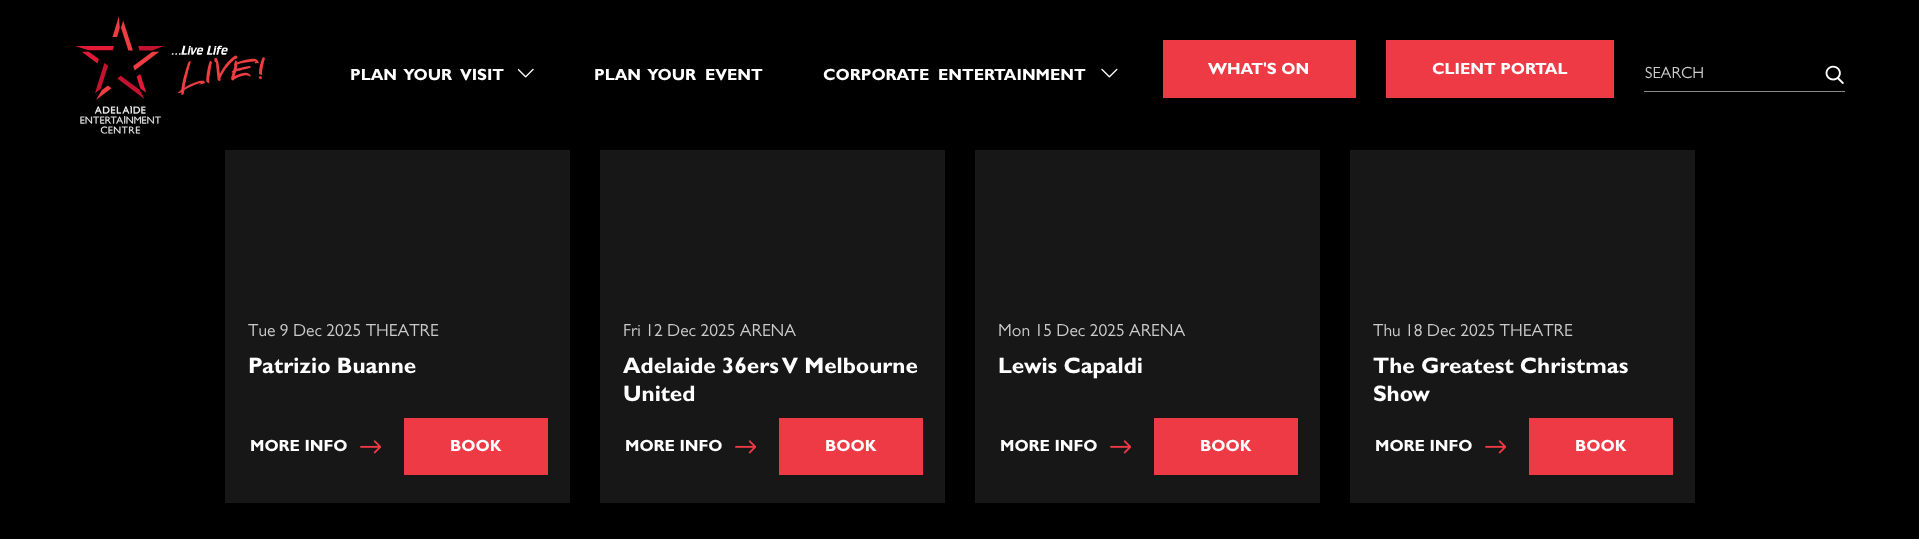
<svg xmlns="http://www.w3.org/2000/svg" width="1919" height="539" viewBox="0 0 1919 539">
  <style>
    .t1 { font: bold 16.25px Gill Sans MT; fill: #fff; }
    .t2 { font: 300 16.25px Gill Sans MT; fill: #cbcbcb; }
    .t3 { font: 300 17.5px Gill Sans MT; fill: #cbcbcb; }
    .t4 { font: bold 22.5px Gill Sans MT; fill: #fff; }
  </style>
  <rect width="100%" height="100%" fill="#000"/>
  <image x="75" y="16" width="190" height="118" href="images/1.png"/>
  <text x="350" y="80" class="t1" xml:space="preserve">PLAN  YOUR</text>
  <text x="460" y="80" class="t1">VISIT</text>
  <image x="518" y="68" width="16" height="10" href="images/2.png"/>
  <text x="594" y="80" class="t1" xml:space="preserve">PLAN  YOUR</text>
  <text x="705" y="80" class="t1">EVENT</text>
  <text x="823" y="80" class="t1">CORPORATE</text>
  <text x="938" y="80" class="t1">ENTERTAINMENT</text>
  <image x="1101" y="68" width="17" height="10" href="images/3.png"/>
  <rect x="1163" y="40" width="193" height="58" fill="#ee3a45"/>
  <text x="1208" y="74" class="t1">WHAT'S ON</text>
  <rect x="1386" y="40" width="228" height="58" fill="#ee3a45"/>
  <text x="1432" y="74" class="t1">CLIENT PORTAL</text>
  <rect x="1644" y="91" width="201" height="1" fill="#8a8a8a"/>
  <text x="1645" y="78" class="t2">SEARCH</text>
  <image x="1825" y="65" width="19" height="19" href="images/4.png"/>
  <rect x="225" y="150" width="345" height="353" fill="#171717"/>
  <text x="248" y="336" class="t3">Tue 9 Dec 2025 THEATRE</text>
  <text x="248" y="373" class="t4">Patrizio Buanne</text>
  <text x="250" y="451" class="t1">MORE INFO</text>
  <image x="360" y="440" width="21" height="14" href="images/5.png"/>
  <rect x="404" y="418" width="144" height="57" fill="#ee3a45"/>
  <text x="450" y="451" class="t1">BOOK</text>
  <rect x="600" y="150" width="345" height="353" fill="#171717"/>
  <text x="623" y="336" class="t3">Fri 12 Dec 2025 ARENA</text>
  <text x="623" y="373" class="t4">Adelaide 36ers V Melbourne</text>
  <text x="623" y="401" class="t4">United</text>
  <text x="625" y="451" class="t1">MORE INFO</text>
  <image x="735" y="440" width="21" height="14" href="images/5.png"/>
  <rect x="779" y="418" width="144" height="57" fill="#ee3a45"/>
  <text x="825" y="451" class="t1">BOOK</text>
  <rect x="975" y="150" width="345" height="353" fill="#171717"/>
  <text x="998" y="336" class="t3">Mon 15 Dec 2025 ARENA</text>
  <text x="998" y="373" class="t4">Lewis Capaldi</text>
  <text x="1000" y="451" class="t1">MORE INFO</text>
  <image x="1110" y="440" width="21" height="14" href="images/5.png"/>
  <rect x="1154" y="418" width="144" height="57" fill="#ee3a45"/>
  <text x="1200" y="451" class="t1">BOOK</text>
  <rect x="1350" y="150" width="345" height="353" fill="#171717"/>
  <text x="1373" y="336" class="t3">Thu 18 Dec 2025 THEATRE</text>
  <text x="1373" y="373" class="t4">The Greatest Christmas</text>
  <text x="1373" y="401" class="t4">Show</text>
  <text x="1375" y="451" class="t1">MORE INFO</text>
  <image x="1485" y="440" width="21" height="14" href="images/5.png"/>
  <rect x="1529" y="418" width="144" height="57" fill="#ee3a45"/>
  <text x="1575" y="451" class="t1">BOOK</text>
</svg>
